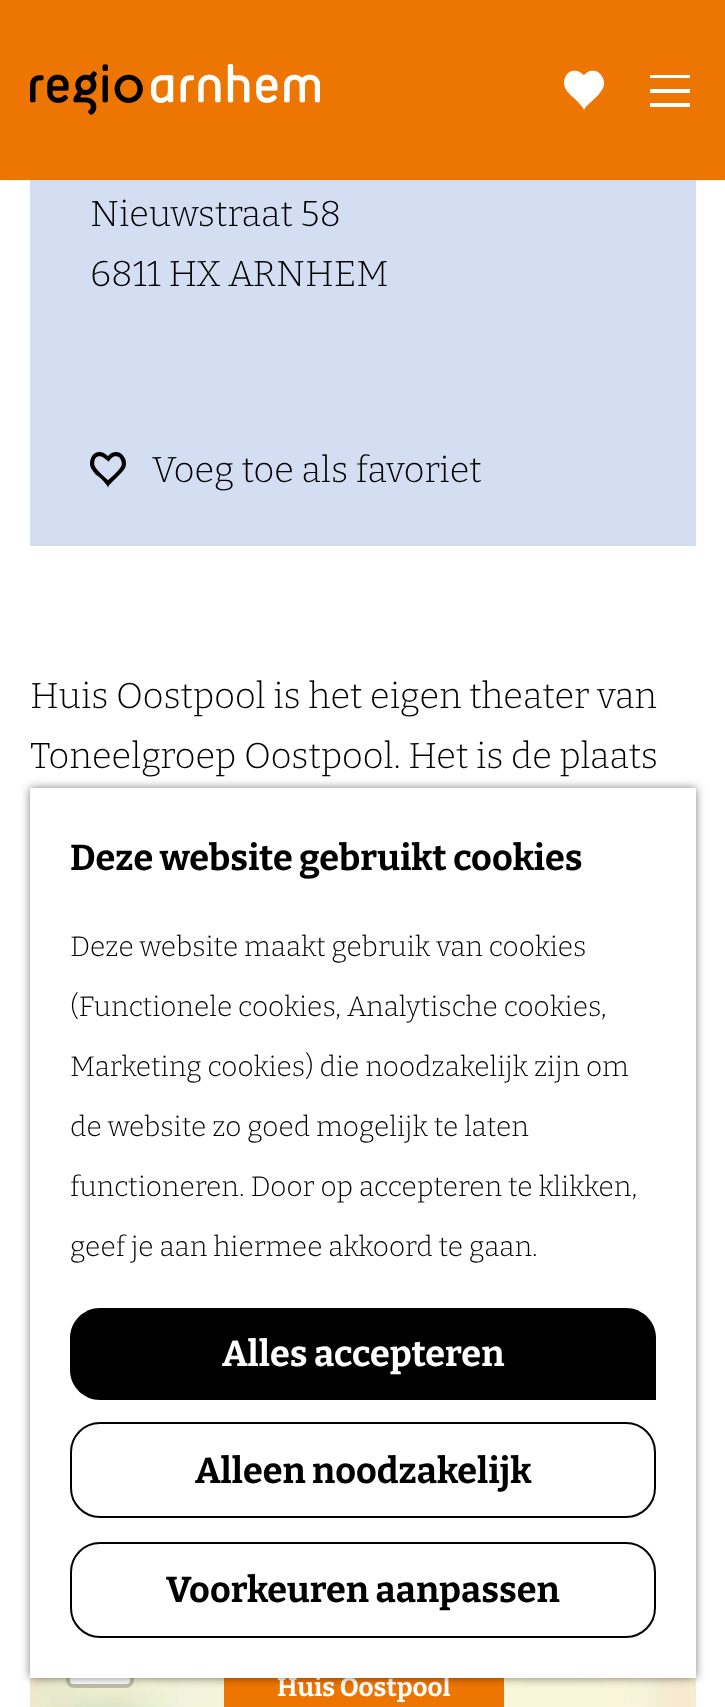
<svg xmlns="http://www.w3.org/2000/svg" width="725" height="1707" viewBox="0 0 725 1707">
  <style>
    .t1 { font: 100 36px Bitter; fill: #000; }
    .t2 { font: 100 26px 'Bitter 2'; fill: #fff; }
    .t3 { font: 100 36px 'Bitter 2'; fill: #000; }
    .t4 { font: 100 28px Bitter; fill: #000; }
    .t5 { font: 100 36px 'Bitter 2'; fill: #fff; }
  </style>
  <rect width="100%" height="100%" fill="#fff"/>
  <rect x="30" y="180" width="666" height="366" fill="#d3def2"/>
  <rect x="0" y="0" width="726" height="180" fill="#0000001a" filter="blur(1px)"/>
  <rect x="0" y="0" width="725" height="180" fill="#ed7501"/>
  <image x="30" y="64" width="290" height="51" href="images/1.png"/>
  <image x="564" y="70" width="40" height="41" href="images/2.png"/>
  <path d="M650 75H690V78H650ZM650 89H690V93H650ZM650 103H690V107H650Z" fill="#fff"/>
  <text x="90" y="226" class="t1">Nieuwstraat 58</text>
  <text x="90" y="286" class="t1">6811 HX ARNHEM</text>
  <image x="90" y="452" width="36" height="36" href="images/3.png"/>
  <text x="152" y="482" class="t1">Voeg toe als favoriet</text>
  <text x="30" y="708" class="t1">Huis Oostpool is het eigen theater van</text>
  <text x="30" y="768" class="t1">Toneelgroep Oostpool. Het is de plaats</text>
  <image x="30" y="1678" width="666" height="29" href="images/4.png"/>
  <rect x="68" y="1622" width="64" height="64" rx="6" fill="none" stroke="#00000033" stroke-width="4"/>
  <rect x="70" y="1624" width="60" height="60" rx="4" fill="#fff"/>
  <rect x="224" y="1678" width="280" height="29" fill="#ed7501"/>
  <text x="277" y="1696" class="t2">Huis Oostpool</text>
  <rect x="30" y="788" width="666" height="890" fill="#00000080" filter="blur(5px)"/>
  <rect x="30" y="788" width="666" height="890" fill="#fff"/>
  <text x="70" y="870" class="t3">Deze website gebruikt cookies</text>
  <text x="70" y="956" class="t4">Deze website maakt gebruik van cookies</text>
  <text x="70" y="1016" class="t4">(Functionele cookies, Analytische cookies,</text>
  <text x="70" y="1076" class="t4">Marketing cookies) die noodzakelijk zijn om</text>
  <text x="70" y="1136" class="t4">de website zo goed mogelijk te laten</text>
  <text x="70" y="1196" class="t4">functioneren. Door op accepteren te klikken,</text>
  <text x="70" y="1256" class="t4">geef je aan hiermee akkoord te gaan.</text>
  <path d="M100 1308H626C642.5 1308 656 1321.5 656 1338V1400H100C83.5 1400 70 1386.5 70 1370V1338C70 1321.5 83.5 1308 100 1308Z" fill="#000"/>
  <text x="222" y="1366" class="t5">Alles accepteren</text>
  <rect x="71" y="1423" width="584" height="94" rx="29" fill="none" stroke="#000" stroke-width="2"/>
  <text x="195" y="1483" class="t3">Alleen noodzakelijk</text>
  <rect x="71" y="1543" width="584" height="94" rx="29" fill="none" stroke="#000" stroke-width="2"/>
  <text x="166" y="1602" class="t3">Voorkeuren aanpassen</text>
</svg>
